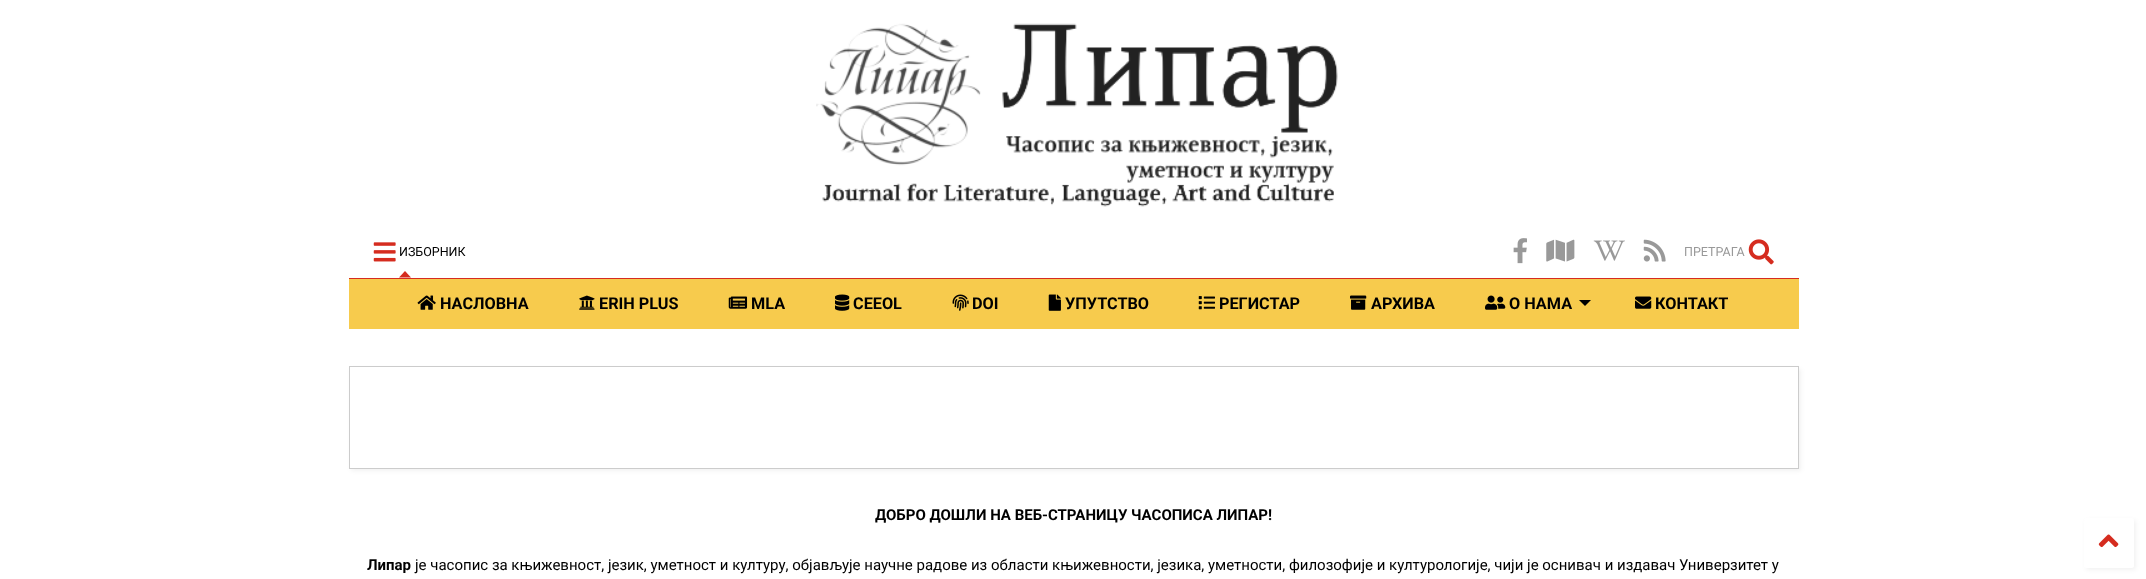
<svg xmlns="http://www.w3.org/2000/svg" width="2146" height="579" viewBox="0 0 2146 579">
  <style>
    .t1 { font: 12.5px Roboto; fill: #000; }
    .t2 { font: 12.5px Roboto; fill: #999; }
    .t3 { font: bold 16.25px Roboto; fill: #000; }
    .t4 { font: bold 15px Roboto; fill: #000; }
    .t5 { font: 15px Roboto; fill: #000; }
  </style>
  <rect width="100%" height="100%" fill="#fff"/>
  <image x="816" y="23" width="522" height="184" href="images/1.png"/>
  <image x="373" y="242" width="23" height="20" href="images/2.png"/>
  <text x="399" y="256" class="t1">ИЗБОРНИК</text>
  <path d="M411 277.5H399L405 271Z" fill="#d52c1f"/>
  <image x="1513" y="238" width="14" height="26" href="images/3.png"/>
  <image x="1546" y="239" width="29" height="23" href="images/4.png"/>
  <image x="1593" y="240" width="32" height="21" href="images/5.png"/>
  <image x="1643" y="239" width="23" height="23" href="images/6.png"/>
  <text x="1684" y="256" class="t2">ПРЕТРАГА</text>
  <image x="1748" y="239" width="26" height="26" href="images/7.png"/>
  <rect x="349" y="279" width="1450" height="50" fill="#f7cb4d"/>
  <rect x="349" y="278" width="1450" height="1" fill="#d52c1f"/>
  <image x="417" y="295" width="19" height="15" href="images/8.png"/>
  <text x="440" y="309" class="t3">НАСЛОВНА</text>
  <image x="579" y="295" width="16" height="15" href="images/9.png"/>
  <text x="599" y="309" class="t3">ERIH PLUS</text>
  <image x="728" y="296" width="20" height="13" href="images/10.png"/>
  <text x="751" y="309" class="t3">MLA</text>
  <image x="835" y="294" width="15" height="17" href="images/11.png"/>
  <text x="853" y="309" class="t3">CEEOL</text>
  <image x="952" y="294" width="17" height="17" href="images/12.png"/>
  <text x="972" y="309" class="t3">DOI</text>
  <image x="1048" y="294" width="13" height="17" href="images/13.png"/>
  <text x="1065" y="309" class="t3">УПУТСТВО</text>
  <image x="1198" y="296" width="17" height="14" href="images/14.png"/>
  <text x="1219" y="309" class="t3">РЕГИСТАР</text>
  <image x="1350" y="295" width="17" height="15" href="images/15.png"/>
  <text x="1371" y="309" class="t3">АРХИВА</text>
  <image x="1485" y="295" width="21" height="15" href="images/16.png"/>
  <text x="1509" y="309" class="t3">О НАМА</text>
  <path d="M1579 300H1591L1585 306Z" fill="#000"/>
  <image x="1635" y="296" width="17" height="13" href="images/17.png"/>
  <text x="1655" y="309" class="t3">КОНТАКТ</text>
  <rect x="351" y="369" width="1450" height="102" fill="#0000000d" filter="blur(2px)"/>
  <rect x="349.5" y="366.5" width="1449" height="102" fill="#fff" stroke="#ccc"/>
  <text x="875" y="520" class="t4">ДОБРО ДОШЛИ НА ВЕБ-СТРАНИЦУ ЧАСОПИСА ЛИПАР!</text>
  <text x="367" y="570" class="t4">Липар</text>
  <text x="415" y="570" class="t5">је часопис за књижевност, језик, уметност и културу, објављује научне радове из области књижевности, језика, уметности, филозофије и културологије, чији је оснивач и издавач Универзитет у</text>
  <rect x="2086" y="520" width="50" height="50" rx="2.5" fill="#0000000d" filter="blur(2px)"/>
  <rect x="2084" y="518" width="50" height="50" rx="2.5" fill="#fff"/>
  <image x="2098" y="534" width="21" height="14" href="images/18.png"/>
</svg>
